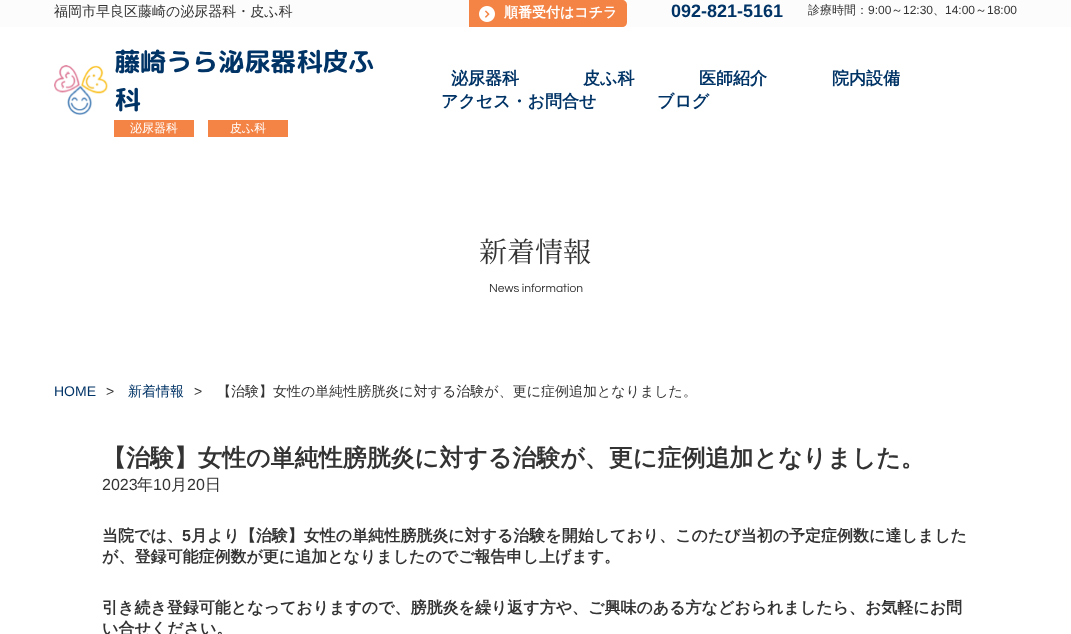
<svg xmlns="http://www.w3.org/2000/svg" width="1071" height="634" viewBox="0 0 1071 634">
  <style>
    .t1 { font: 500 14px WenQuanYi Zen Hei; fill: #333; }
    .t2 { font: bold 14px WenQuanYi Zen Hei; fill: #fff; }
    .t3 { font: bold 18px Liberation Sans; fill: #036; }
    .t4 { font: 500 12px WenQuanYi Zen Hei; fill: #333; }
    .t5 { font: 12px Liberation Sans; fill: #333; }
    .t6 { font: bold 26px 'Rounded Mplus 1c Bold'; fill: #036; }
    .t7 { font: 500 12px WenQuanYi Zen Hei; fill: #fff; }
    .t8 { font: bold 17px WenQuanYi Zen Hei; fill: #036; }
    .t9 { font: 200 28px Noto Serif JP; fill: #333; }
    .t10 { font: 12px Questrial; fill: #333; }
    .t11 { font: 14px Liberation Sans; fill: #036; }
    .t12 { font: 14px Liberation Sans; fill: #333; }
    .t13 { font: 500 14px WenQuanYi Zen Hei; fill: #036; }
    .t14 { font: bold 24px WenQuanYi Zen Hei; fill: #333; }
    .t15 { font: 16px Liberation Sans; fill: #333; }
    .t16 { font: 500 16px WenQuanYi Zen Hei; fill: #333; }
    .t17 { font: bold 16px WenQuanYi Zen Hei; fill: #333; }
    .t18 { font: bold 16px Liberation Sans; fill: #333; }
  </style>
  <rect width="100%" height="100%" fill="#fff"/>
  <rect x="0" y="0" width="1071" height="27" fill="#fcfcfc"/>
  <text x="54" y="16" class="t1">福岡市早良区藤崎の泌尿器科・皮ふ科</text>
  <path d="M469 0H622C625 0 627 2 627 5V22C627 25 625 27 622 27H469Z" fill="#f48445"/>
  <image x="479" y="6" width="16" height="16" href="images/1.png"/>
  <text x="504" y="17" class="t2">順番受付はコチラ</text>
  <text x="671" y="17" class="t3">092-821-5161</text>
  <text x="808" y="14" class="t4">診療時間：</text>
  <text x="868" y="14" class="t5">9:00</text>
  <text x="891" y="14" class="t4">～</text>
  <text x="903" y="14" class="t5">12:30</text>
  <text x="945" y="14" class="t5">14:00</text>
  <text x="975" y="14" class="t4">～</text>
  <text x="987" y="14" class="t5">18:00</text>
  <text x="933" y="14" class="t4">、</text>
  <image x="54" y="65" width="54" height="50" href="images/2.png"/>
  <text x="114" y="71" class="t6">藤崎うら泌尿器科皮ふ</text>
  <text x="114" y="109" class="t6">科</text>
  <rect x="114" y="120" width="80" height="17" fill="#f48445"/>
  <text x="130" y="132" class="t7">泌尿器科</text>
  <rect x="208" y="120" width="80" height="17" fill="#f48445"/>
  <text x="230" y="132" class="t7">皮ふ科</text>
  <text x="451" y="84" class="t8">泌尿器科</text>
  <text x="583" y="84" class="t8">皮ふ科</text>
  <text x="699" y="84" class="t8">医師紹介</text>
  <text x="832" y="84" class="t8">院内設備</text>
  <text x="441" y="107" class="t8">アクセス・お問合せ</text>
  <text x="657" y="107" class="t8">ブログ</text>
  <text x="479" y="262" class="t9">新着情報</text>
  <text x="489" y="292" class="t10">News information</text>
  <text x="54" y="396" class="t11">HOME</text>
  <text x="106" y="396" class="t12">&gt;</text>
  <text x="128" y="396" class="t13">新着情報</text>
  <text x="194" y="396" class="t12">&gt;</text>
  <text x="217" y="396" class="t1">【治験】女性の単純性膀胱炎に対する治験が、更に症例追加となりました。</text>
  <text x="102" y="466" class="t14">【治験】女性の単純性膀胱炎に対する治験が、更に症例追加となりました。</text>
  <text x="102" y="490" class="t15">2023</text>
  <text x="137" y="490" class="t16">年</text>
  <text x="153" y="490" class="t15">10</text>
  <text x="171" y="490" class="t16">月</text>
  <text x="187" y="490" class="t15">20</text>
  <text x="205" y="490" class="t16">日</text>
  <text x="102" y="541" class="t17">当院では、</text>
  <text x="182" y="541" class="t18">5</text>
  <text x="191" y="541" class="t17">月より【治験】女性の単純性膀胱炎に対する治験を開始しており、このたび当初の予定症例数に達しました</text>
  <text x="102" y="562" class="t17">が、登録可能症例数が更に追加となりましたのでご報告申し上げます。</text>
  <text x="102" y="613" class="t17">引き続き登録可能となっておりますので、膀胱炎を繰り返す方や、ご興味のある方などおられましたら、お気軽にお問</text>
  <text x="102" y="634" class="t17">い合せください。</text>
</svg>
